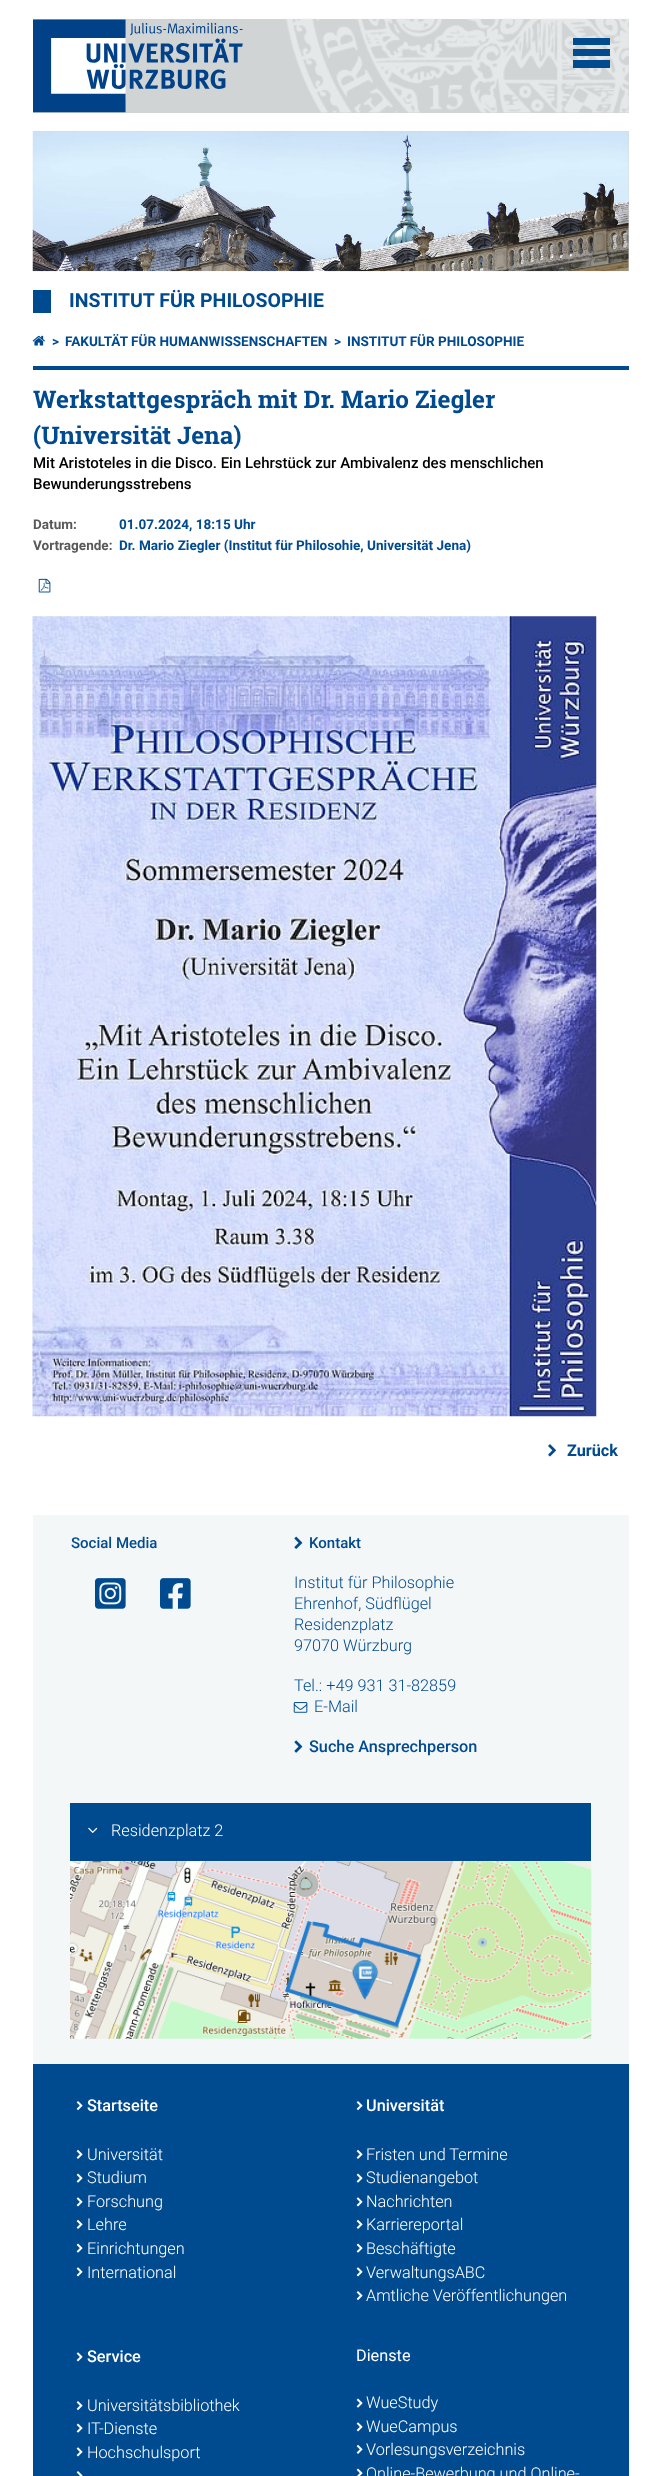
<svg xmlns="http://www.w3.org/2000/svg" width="661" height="2476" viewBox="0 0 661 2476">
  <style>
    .t1 { font: bold 19.5px Roboto; fill: #004a8f; }
    .t2 { font: bold 13.55px Roboto; fill: #004a8f; }
    .t3 { font: bold 24.4px Roboto Slab; fill: #004a8f; }
    .t4 { font: 500 15px Roboto; fill: #000; }
    .t5 { font: bold 13.55px Roboto; fill: #595959; }
    .t6 { font: bold 16.25px Roboto; fill: #004a8f; }
    .t7 { font: 500 15px Roboto; fill: #004a8f; }
    .t8 { font: 300 16.25px Roboto; fill: #004a8f; }
    .t9 { font: 500 16.25px Roboto; fill: #004a8f; }
    .t10 { font: 300 16.25px Roboto; fill: #fff; }
    .t11 { font: 500 16.25px Roboto; fill: #fff; }
    .t12 { font: 16.25px Roboto; fill: #fff; }
  </style>
  <rect width="100%" height="100%" fill="#fff"/>
  <rect x="33" y="19" width="596" height="94" fill="#d1d4d4"/>
  <image x="286" y="18" width="343" height="95" href="images/1.png"/>
  <image x="33" y="19" width="210" height="94" href="images/2.png"/>
  <rect x="573" y="38" width="37" height="7" fill="#004a8f"/>
  <rect x="573" y="49" width="37" height="7" fill="#004a8f"/>
  <rect x="573" y="60" width="37" height="8" fill="#004a8f"/>
  <rect x="33" y="131" width="596" height="140" fill="#d5dad5"/>
  <image x="32" y="131" width="597" height="141" href="images/3.png"/>
  <rect x="33" y="290" width="18" height="23" fill="#004a8f"/>
  <text x="69" y="307" class="t1">INSTITUT FÜR PHILOSOPHIE</text>
  <rect x="33" y="366" width="596" height="4" fill="#004a8f"/>
  <image x="32" y="335" width="13" height="11" href="images/4.png"/>
  <text x="52" y="346" class="t2">&gt;</text>
  <text x="65" y="346" class="t2">FAKULTÄT FÜR HUMANWISSENSCHAFTEN</text>
  <text x="334" y="346" class="t2">&gt;</text>
  <text x="347" y="346" class="t2">INSTITUT FÜR PHILOSOPHIE</text>
  <text x="33" y="408" class="t3">Werkstattgespräch mit Dr. Mario Ziegler</text>
  <text x="33" y="444" class="t3">(Universität Jena)</text>
  <text x="33" y="468" class="t4">Mit Aristoteles in die Disco. Ein Lehrstück zur Ambivalenz des menschlichen</text>
  <text x="33" y="489" class="t4">Bewunderungsstrebens</text>
  <text x="33" y="529" class="t5">Datum:</text>
  <text x="119" y="529" class="t2">01.07.2024, 18:15 Uhr</text>
  <text x="33" y="550" class="t5">Vortragende:</text>
  <text x="119" y="550" class="t2">Dr. Mario Ziegler (Institut für Philosohie, Universität Jena)</text>
  <image x="38" y="578" width="13" height="15" href="images/5.png"/>
  <image x="32" y="616" width="565" height="801" href="images/6.png"/>
  <image x="548" y="1444" width="8" height="13" href="images/7.png"/>
  <text x="567" y="1456" class="t6">Zurück</text>
  <rect x="33" y="1515" width="596" height="549" fill="#f4f7f7"/>
  <text x="71" y="1548" class="t7">Social Media</text>
  <image x="95" y="1578" width="31" height="31" href="images/8.png"/>
  <image x="160" y="1578" width="31" height="31" href="images/9.png"/>
  <image x="294" y="1536" width="9" height="13" href="images/10.png"/>
  <text x="309" y="1548" class="t7">Kontakt</text>
  <text x="294" y="1588" class="t8">Institut für Philosophie</text>
  <text x="294" y="1609" class="t8">Ehrenhof, Südflügel</text>
  <text x="294" y="1630" class="t8">Residenzplatz</text>
  <text x="294" y="1651" class="t8">97070 Würzburg</text>
  <text x="294" y="1691" class="t8">Tel.: +49 931 31-82859</text>
  <image x="293" y="1702" width="15" height="11" href="images/11.png"/>
  <text x="314" y="1712" class="t8">E-Mail</text>
  <image x="294" y="1740" width="9" height="13" href="images/12.png"/>
  <text x="309" y="1752" class="t9">Suche Ansprechperson</text>
  <rect x="70" y="1803" width="521" height="58" fill="#004a8f"/>
  <image x="88" y="1827" width="10" height="6" href="images/13.png"/>
  <text x="111" y="1836" class="t10">Residenzplatz 2</text>
  <image x="70" y="1861" width="522" height="178" href="images/14.png"/>
  <rect x="33" y="2064" width="596" height="412" fill="#004a8f"/>
  <image x="76" y="2101" width="7" height="10" href="images/15.png"/>
  <text x="87" y="2111" class="t11">Startseite</text>
  <image x="76" y="2149" width="7" height="10" href="images/16.png"/>
  <text x="87" y="2160" class="t10">Universität</text>
  <image x="76" y="2173" width="7" height="10" href="images/17.png"/>
  <text x="87" y="2183" class="t10">Studium</text>
  <image x="76" y="2197" width="7" height="10" href="images/18.png"/>
  <text x="87" y="2207" class="t10">Forschung</text>
  <image x="76" y="2219" width="7" height="10" href="images/16.png"/>
  <text x="87" y="2230" class="t10">Lehre</text>
  <image x="76" y="2243" width="7" height="10" href="images/17.png"/>
  <text x="87" y="2254" class="t10">Einrichtungen</text>
  <image x="76" y="2267" width="7" height="10" href="images/18.png"/>
  <text x="87" y="2278" class="t10">International</text>
  <image x="356" y="2101" width="7" height="10" href="images/15.png"/>
  <text x="366" y="2111" class="t11">Universität</text>
  <image x="356" y="2149" width="7" height="10" href="images/16.png"/>
  <text x="366" y="2160" class="t10">Fristen und Termine</text>
  <image x="356" y="2173" width="7" height="10" href="images/17.png"/>
  <text x="366" y="2183" class="t10">Studienangebot</text>
  <image x="356" y="2197" width="7" height="10" href="images/18.png"/>
  <text x="366" y="2207" class="t10">Nachrichten</text>
  <image x="356" y="2219" width="7" height="10" href="images/16.png"/>
  <text x="366" y="2230" class="t10">Karriereportal</text>
  <image x="356" y="2243" width="7" height="10" href="images/17.png"/>
  <text x="366" y="2254" class="t10">Beschäftigte</text>
  <image x="356" y="2267" width="7" height="10" href="images/18.png"/>
  <text x="366" y="2278" class="t10">VerwaltungsABC</text>
  <image x="356" y="2291" width="7" height="10" href="images/15.png"/>
  <text x="366" y="2301" class="t10">Amtliche Veröffentlichungen</text>
  <image x="76" y="2352" width="7" height="10" href="images/18.png"/>
  <text x="87" y="2362" class="t11">Service</text>
  <image x="76" y="2401" width="7" height="10" href="images/15.png"/>
  <text x="87" y="2411" class="t10">Universitätsbibliothek</text>
  <image x="76" y="2423" width="7" height="10" href="images/17.png"/>
  <text x="87" y="2434" class="t10">IT-Dienste</text>
  <image x="76" y="2447" width="7" height="10" href="images/18.png"/>
  <text x="87" y="2458" class="t10">Hochschulsport</text>
  <image x="76" y="2471" width="7" height="5" href="images/19.png"/>
  <text x="356" y="2361" class="t12">Dienste</text>
  <image x="356" y="2398" width="7" height="10" href="images/17.png"/>
  <text x="366" y="2408" class="t10">WueStudy</text>
  <image x="356" y="2422" width="7" height="10" href="images/18.png"/>
  <text x="366" y="2432" class="t10">WueCampus</text>
  <image x="356" y="2444" width="7" height="10" href="images/16.png"/>
  <text x="366" y="2455" class="t10">Vorlesungsverzeichnis</text>
  <image x="356" y="2468" width="7" height="8" href="images/20.png"/>
  <text x="366" y="2479" class="t10">Online-Bewerbung und Online-</text>
</svg>
